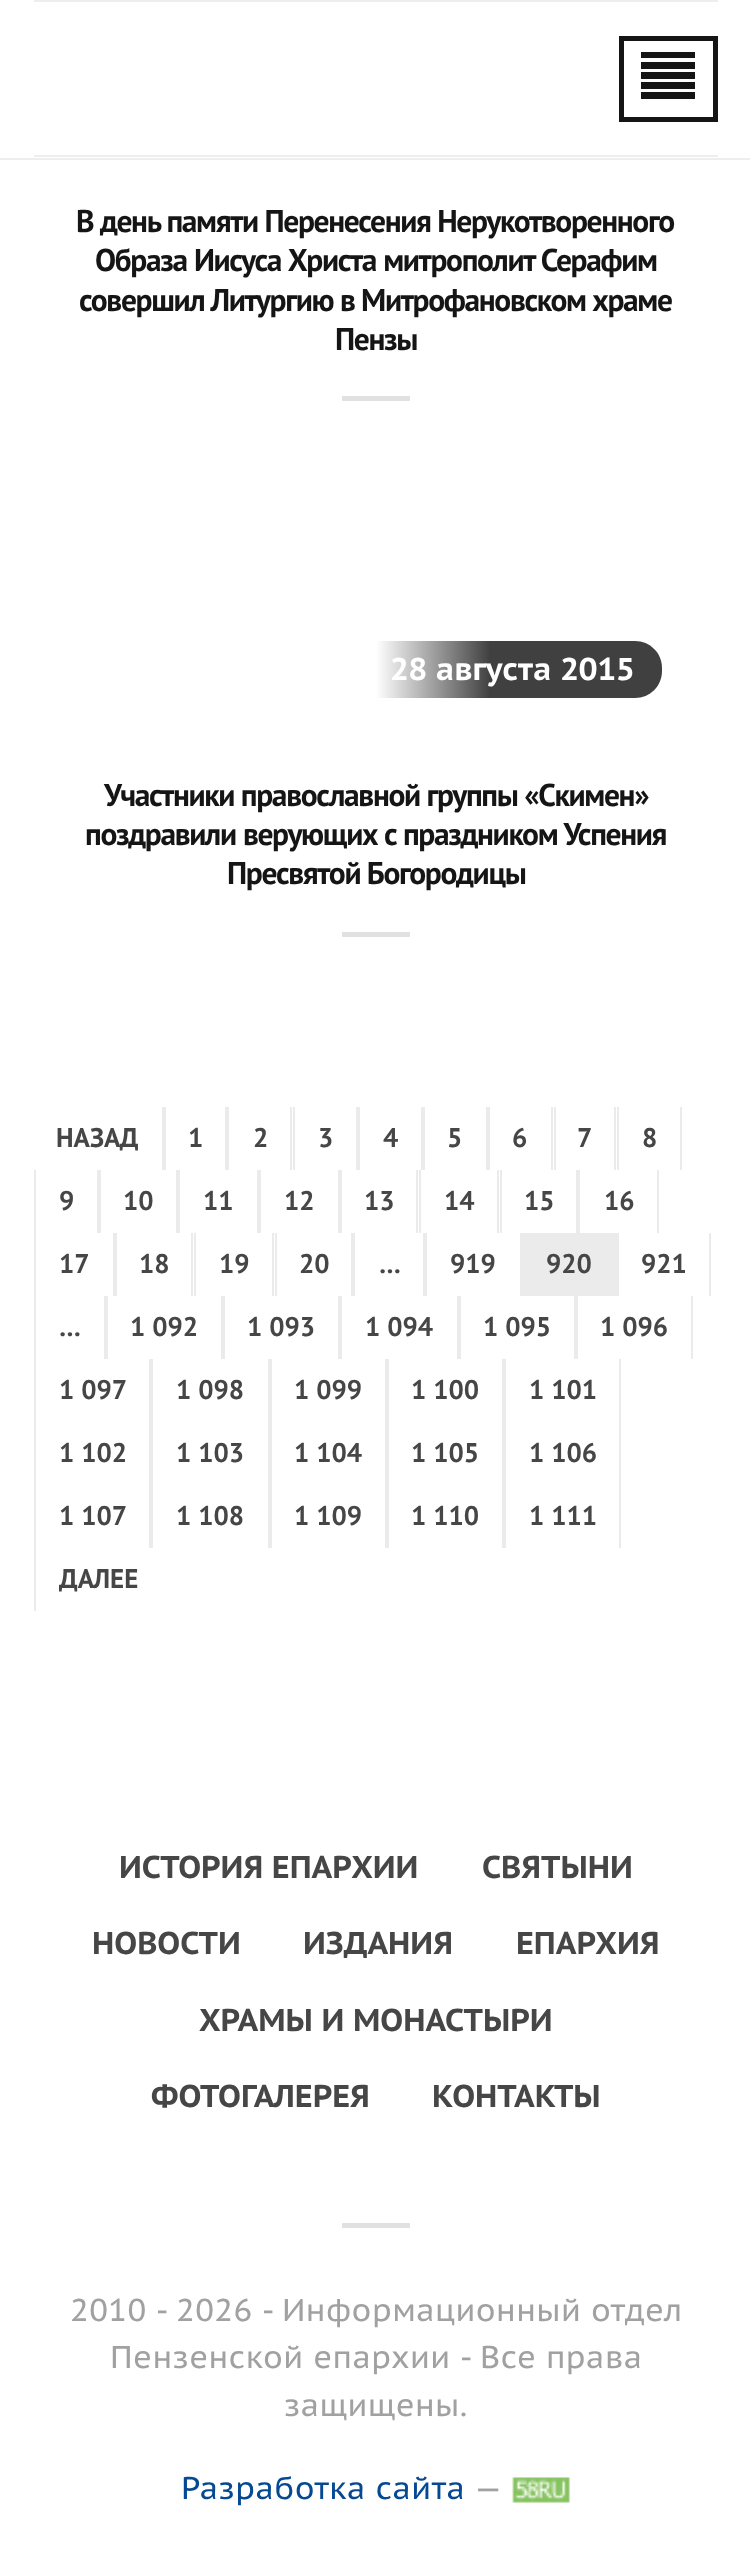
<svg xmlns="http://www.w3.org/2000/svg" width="750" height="2570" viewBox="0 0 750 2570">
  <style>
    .t1 { font: bold 31.5px PT Sans; letter-spacing: -1.35px; fill: #151515; }
    .t2 { font: bold 31.5px PT Sans Caption; fill: #fff; }
    .t3 { font: bold 27px PT Sans; fill: #464646; }
    .t4 { font: bold 31.5px PT Sans Caption; fill: #464646; }
    .t5 { font: 31.5px PT Sans Caption; letter-spacing: 0.45px; fill: #a1a1a1; }
    .t6 { font: 31.5px PT Sans Caption; letter-spacing: 0.45px; fill: #054993; }
  </style>
  <defs>
    <linearGradient id="g1" gradientUnits="userSpaceOnUse" x1="662" y1="669" x2="376" y2="669"><stop offset="0.6" stop-color="#404040"/><stop offset="1" stop-color="#fff"/></linearGradient>
  </defs>
  <rect width="100%" height="100%" fill="#fff"/>
  <rect x="0" y="158" width="750" height="2" fill="#eee"/>
  <rect x="34" y="0" width="684" height="2" fill="#eee"/>
  <rect x="34" y="155" width="684" height="2" fill="#eee"/>
  <rect x="621.5" y="38.5" width="94" height="81" fill="none" stroke="#151515" stroke-width="5"/>
  <path d="M641 52H695V58H641ZM641 62H695V69H641ZM641 72H695V79H641ZM641 82H695V89H641ZM641 92H695V99H641Z" fill="#151515"/>
  <text x="76" y="232" class="t1">В день памяти Перенесения Нерукотворенного</text>
  <text x="95" y="271" word-spacing="0.5" class="t1">Образа Иисуса Христа митрополит Серафим</text>
  <text x="79" y="311" class="t1">совершил Литургию в Митрофановском храме</text>
  <text x="335" y="350" class="t1">Пензы</text>
  <rect x="342" y="396" width="68" height="5" fill="#e1e1e1"/>
  <path d="M376 641H635C650 641 662 653 662 668V671C662 686 650 698 635 698H376Z" fill="url(#g1)"/>
  <text x="390" y="680" class="t2">28 августа 2015</text>
  <text x="104" y="806" class="t1">Участники православной группы «Скимен»</text>
  <text x="85" y="845" word-spacing="0.5" class="t1">поздравили верующих с праздником Успения</text>
  <text x="227" y="884" class="t1">Пресвятой Богородицы</text>
  <rect x="342" y="932" width="68" height="5" fill="#e1e1e1"/>
  <rect x="162" y="1107" width="4" height="63" fill="#ebebeb"/>
  <text x="56" y="1147" class="t3">НАЗАД</text>
  <rect x="225" y="1107" width="4" height="63" fill="#ebebeb"/>
  <text x="188" y="1147" class="t3">1</text>
  <rect x="290" y="1107" width="2" height="63" fill="#ebebeb"/>
  <text x="253" y="1147" class="t3">2</text>
  <rect x="356" y="1107" width="4" height="63" fill="#ebebeb"/>
  <rect x="293" y="1107" width="2" height="63" fill="#ebebeb"/>
  <text x="318" y="1147" class="t3">3</text>
  <rect x="421" y="1107" width="4" height="63" fill="#ebebeb"/>
  <text x="383" y="1147" class="t3">4</text>
  <rect x="486" y="1107" width="4" height="63" fill="#ebebeb"/>
  <text x="447" y="1147" class="t3">5</text>
  <rect x="551" y="1107" width="2" height="63" fill="#ebebeb"/>
  <text x="512" y="1147" class="t3">6</text>
  <rect x="614" y="1107" width="2" height="63" fill="#ebebeb"/>
  <rect x="554" y="1107" width="2" height="63" fill="#ebebeb"/>
  <text x="577" y="1147" class="t3">7</text>
  <rect x="680" y="1107" width="2" height="63" fill="#ebebeb"/>
  <rect x="617" y="1107" width="2" height="63" fill="#ebebeb"/>
  <text x="642" y="1147" class="t3">8</text>
  <rect x="97" y="1170" width="4" height="63" fill="#ebebeb"/>
  <rect x="34" y="1170" width="2" height="441" fill="#ebebeb"/>
  <text x="59" y="1210" class="t3">9</text>
  <rect x="176" y="1170" width="4" height="63" fill="#ebebeb"/>
  <text x="123" y="1210" class="t3">10</text>
  <rect x="257" y="1170" width="4" height="63" fill="#ebebeb"/>
  <text x="203" y="1210" class="t3">11</text>
  <rect x="338" y="1170" width="4" height="63" fill="#ebebeb"/>
  <text x="284" y="1210" class="t3">12</text>
  <rect x="416" y="1170" width="2" height="63" fill="#ebebeb"/>
  <text x="364" y="1210" class="t3">13</text>
  <rect x="497" y="1170" width="2" height="63" fill="#ebebeb"/>
  <rect x="419" y="1170" width="2" height="63" fill="#ebebeb"/>
  <text x="444" y="1210" class="t3">14</text>
  <rect x="576" y="1170" width="4" height="63" fill="#ebebeb"/>
  <rect x="500" y="1170" width="2" height="63" fill="#ebebeb"/>
  <text x="524" y="1210" class="t3">15</text>
  <rect x="657" y="1170" width="2" height="63" fill="#ebebeb"/>
  <text x="604" y="1210" class="t3">16</text>
  <rect x="113" y="1233" width="4" height="63" fill="#ebebeb"/>
  <text x="59" y="1273" class="t3">17</text>
  <rect x="191" y="1233" width="2" height="63" fill="#ebebeb"/>
  <text x="139" y="1273" class="t3">18</text>
  <rect x="272" y="1233" width="2" height="63" fill="#ebebeb"/>
  <rect x="194" y="1233" width="2" height="63" fill="#ebebeb"/>
  <text x="219" y="1273" class="t3">19</text>
  <rect x="351" y="1233" width="4" height="63" fill="#ebebeb"/>
  <rect x="275" y="1233" width="2" height="63" fill="#ebebeb"/>
  <text x="299" y="1273" class="t3">20</text>
  <rect x="423" y="1233" width="4" height="63" fill="#ebebeb"/>
  <text x="379" y="1273" class="t3">…</text>
  <rect x="520" y="1233" width="99" height="63" fill="#ebebeb"/>
  <text x="450" y="1273" class="t3">919</text>
  <text x="546" y="1273" class="t3">920</text>
  <rect x="709" y="1233" width="2" height="63" fill="#ebebeb"/>
  <text x="641" y="1273" class="t3">921</text>
  <rect x="104" y="1296" width="4" height="63" fill="#ebebeb"/>
  <text x="59" y="1336" class="t3">…</text>
  <rect x="221" y="1296" width="4" height="63" fill="#ebebeb"/>
  <text x="130" y="1336" class="t3">1 092</text>
  <rect x="338" y="1296" width="4" height="63" fill="#ebebeb"/>
  <text x="247" y="1336" class="t3">1 093</text>
  <rect x="457" y="1296" width="4" height="63" fill="#ebebeb"/>
  <text x="365" y="1336" class="t3">1 094</text>
  <rect x="574" y="1296" width="4" height="63" fill="#ebebeb"/>
  <text x="483" y="1336" class="t3">1 095</text>
  <rect x="691" y="1296" width="2" height="63" fill="#ebebeb"/>
  <text x="600" y="1336" class="t3">1 096</text>
  <rect x="149" y="1359" width="4" height="63" fill="#ebebeb"/>
  <text x="59" y="1399" class="t3">1 097</text>
  <rect x="268" y="1359" width="4" height="63" fill="#ebebeb"/>
  <text x="176" y="1399" class="t3">1 098</text>
  <rect x="385" y="1359" width="4" height="63" fill="#ebebeb"/>
  <text x="294" y="1399" class="t3">1 099</text>
  <rect x="502" y="1359" width="4" height="63" fill="#ebebeb"/>
  <text x="411" y="1399" class="t3">1 100</text>
  <rect x="619" y="1359" width="2" height="189" fill="#ebebeb"/>
  <text x="529" y="1399" class="t3">1 101</text>
  <rect x="149" y="1422" width="4" height="63" fill="#ebebeb"/>
  <text x="59" y="1462" class="t3">1 102</text>
  <rect x="268" y="1422" width="4" height="63" fill="#ebebeb"/>
  <text x="176" y="1462" class="t3">1 103</text>
  <rect x="385" y="1422" width="4" height="63" fill="#ebebeb"/>
  <text x="294" y="1462" class="t3">1 104</text>
  <rect x="502" y="1422" width="4" height="63" fill="#ebebeb"/>
  <text x="411" y="1462" class="t3">1 105</text>
  <text x="529" y="1462" class="t3">1 106</text>
  <rect x="149" y="1485" width="4" height="63" fill="#ebebeb"/>
  <text x="59" y="1525" class="t3">1 107</text>
  <rect x="268" y="1485" width="4" height="63" fill="#ebebeb"/>
  <text x="176" y="1525" class="t3">1 108</text>
  <rect x="385" y="1485" width="4" height="63" fill="#ebebeb"/>
  <text x="294" y="1525" class="t3">1 109</text>
  <rect x="502" y="1485" width="4" height="63" fill="#ebebeb"/>
  <text x="411" y="1525" class="t3">1 110</text>
  <text x="529" y="1525" class="t3">1 111</text>
  <text x="59" y="1588" class="t3">ДАЛЕЕ</text>
  <text x="119" y="1878" class="t4">ИСТОРИЯ ЕПАРХИИ</text>
  <text x="482" y="1878" class="t4">СВЯТЫНИ</text>
  <text x="92" y="1954" class="t4">НОВОСТИ</text>
  <text x="303" y="1954" class="t4">ИЗДАНИЯ</text>
  <text x="516" y="1954" class="t4">ЕПАРХИЯ</text>
  <text x="199" y="2031" class="t4">ХРАМЫ И МОНАСТЫРИ</text>
  <text x="151" y="2107" class="t4">ФОТОГАЛЕРЕЯ</text>
  <text x="432" y="2107" class="t4">КОНТАКТЫ</text>
  <rect x="342" y="2223" width="68" height="5" fill="#e1e1e1"/>
  <text x="70" y="2321" class="t5">2010 - 2026 - Информационный отдел</text>
  <text x="110" y="2368" class="t5">Пензенской епархии - Все права</text>
  <text x="284" y="2416" class="t5">защищены.</text>
  <text x="181" y="2499" class="t6">Разработка сайта</text>
  <text x="474" y="2499" class="t5">—</text>
  <image x="512" y="2477" width="58" height="26" href="images/1.png"/>
</svg>
